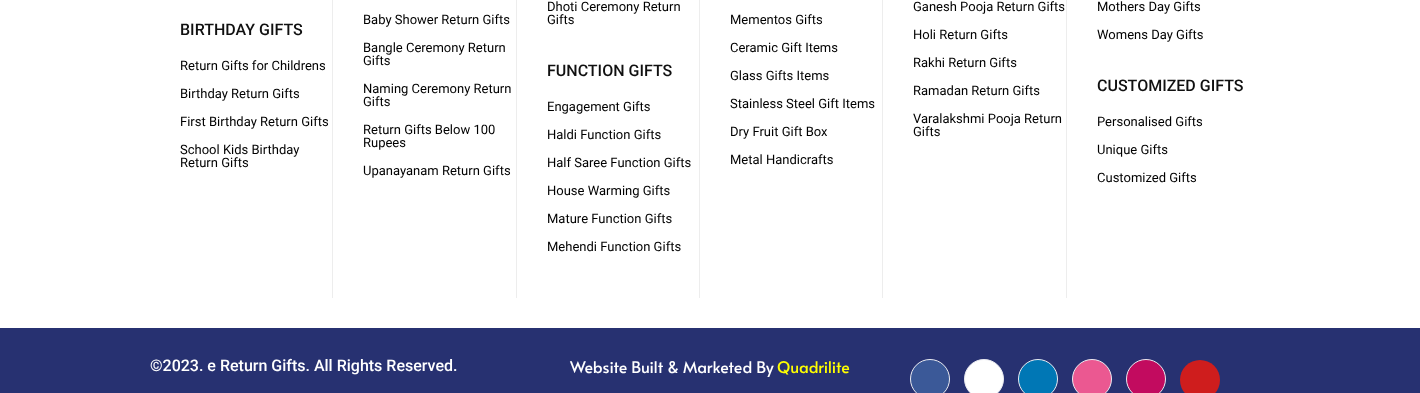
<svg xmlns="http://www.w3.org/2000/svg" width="1420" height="393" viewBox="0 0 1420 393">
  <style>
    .t1 { font: 500 16px Roboto; fill: #101010; }
    .t2 { font: 13px Roboto; fill: #000; }
    .t3 { font: 500 16px Roboto; fill: #fff; }
    .t4 { font: 16px Alata; fill: #fff; }
    .t5 { font: 16px Alata; fill: #ff0; }
  </style>
  <rect width="100%" height="100%" fill="#fff"/>
  <rect x="332" y="0" width="1" height="298" fill="#ededed"/>
  <text x="180" y="35" class="t1">BIRTHDAY GIFTS</text>
  <text x="180" y="70" class="t2">Return Gifts for Childrens</text>
  <text x="180" y="98" class="t2">Birthday Return Gifts</text>
  <text x="180" y="126" class="t2">First Birthday Return Gifts</text>
  <text x="180" y="154" class="t2">School Kids Birthday</text>
  <text x="180" y="167" class="t2">Return Gifts</text>
  <rect x="516" y="0" width="1" height="298" fill="#ededed"/>
  <text x="363" y="24" class="t2">Baby Shower Return Gifts</text>
  <text x="363" y="52" class="t2">Bangle Ceremony Return</text>
  <text x="363" y="65" class="t2">Gifts</text>
  <text x="363" y="93" class="t2">Naming Ceremony Return</text>
  <text x="363" y="106" class="t2">Gifts</text>
  <text x="363" y="134" class="t2">Return Gifts Below 100</text>
  <text x="363" y="147" class="t2">Rupees</text>
  <text x="363" y="175" class="t2">Upanayanam Return Gifts</text>
  <rect x="699" y="0" width="1" height="298" fill="#ededed"/>
  <text x="547" y="11" class="t2">Dhoti Ceremony Return</text>
  <text x="547" y="24" class="t2">Gifts</text>
  <text x="547" y="76" class="t1">FUNCTION GIFTS</text>
  <text x="547" y="111" class="t2">Engagement Gifts</text>
  <text x="547" y="139" class="t2">Haldi Function Gifts</text>
  <text x="547" y="167" class="t2">Half Saree Function Gifts</text>
  <text x="547" y="195" class="t2">House Warming Gifts</text>
  <text x="547" y="223" class="t2">Mature Function Gifts</text>
  <text x="547" y="251" class="t2">Mehendi Function Gifts</text>
  <rect x="882" y="0" width="1" height="298" fill="#ededed"/>
  <text x="730" y="24" class="t2">Mementos Gifts</text>
  <text x="730" y="52" class="t2">Ceramic Gift Items</text>
  <text x="730" y="80" class="t2">Glass Gifts Items</text>
  <text x="730" y="108" class="t2">Stainless Steel Gift Items</text>
  <text x="730" y="136" class="t2">Dry Fruit Gift Box</text>
  <text x="730" y="164" class="t2">Metal Handicrafts</text>
  <rect x="1066" y="0" width="1" height="298" fill="#ededed"/>
  <text x="913" y="11" class="t2">Ganesh Pooja Return Gifts</text>
  <text x="913" y="39" class="t2">Holi Return Gifts</text>
  <text x="913" y="67" class="t2">Rakhi Return Gifts</text>
  <text x="913" y="95" class="t2">Ramadan Return Gifts</text>
  <text x="913" y="123" class="t2">Varalakshmi Pooja Return</text>
  <text x="913" y="136" class="t2">Gifts</text>
  <text x="1097" y="11" class="t2">Mothers Day Gifts</text>
  <text x="1097" y="39" class="t2">Womens Day Gifts</text>
  <text x="1097" y="91" class="t1">CUSTOMIZED GIFTS</text>
  <text x="1097" y="126" class="t2">Personalised Gifts</text>
  <text x="1097" y="154" class="t2">Unique Gifts</text>
  <text x="1097" y="182" class="t2">Customized Gifts</text>
  <rect x="0" y="328" width="1420" height="65" fill="#273171"/>
  <text x="150" y="371" class="t3">©2023. e Return Gifts. All Rights Reserved.</text>
  <text x="570" y="373" class="t4">Website Built &amp; Marketed By</text>
  <text x="777" y="373" class="t5">Quadrilite</text>
  <circle cx="930" cy="379" r="19.5" fill="#3b5998" stroke="#eaebf1"/>
  <circle cx="984" cy="379" r="19.5" fill="#fff" stroke="#eaebf1"/>
  <circle cx="1038" cy="379" r="19.5" fill="#0077b5" stroke="#eaebf1"/>
  <circle cx="1092" cy="379" r="19.5" fill="#eb5891" stroke="#eaebf1"/>
  <circle cx="1146" cy="379" r="19.5" fill="#c20b5f" stroke="#eaebf1"/>
  <circle cx="1200" cy="380" r="20" fill="#cf1d1d"/>
</svg>
